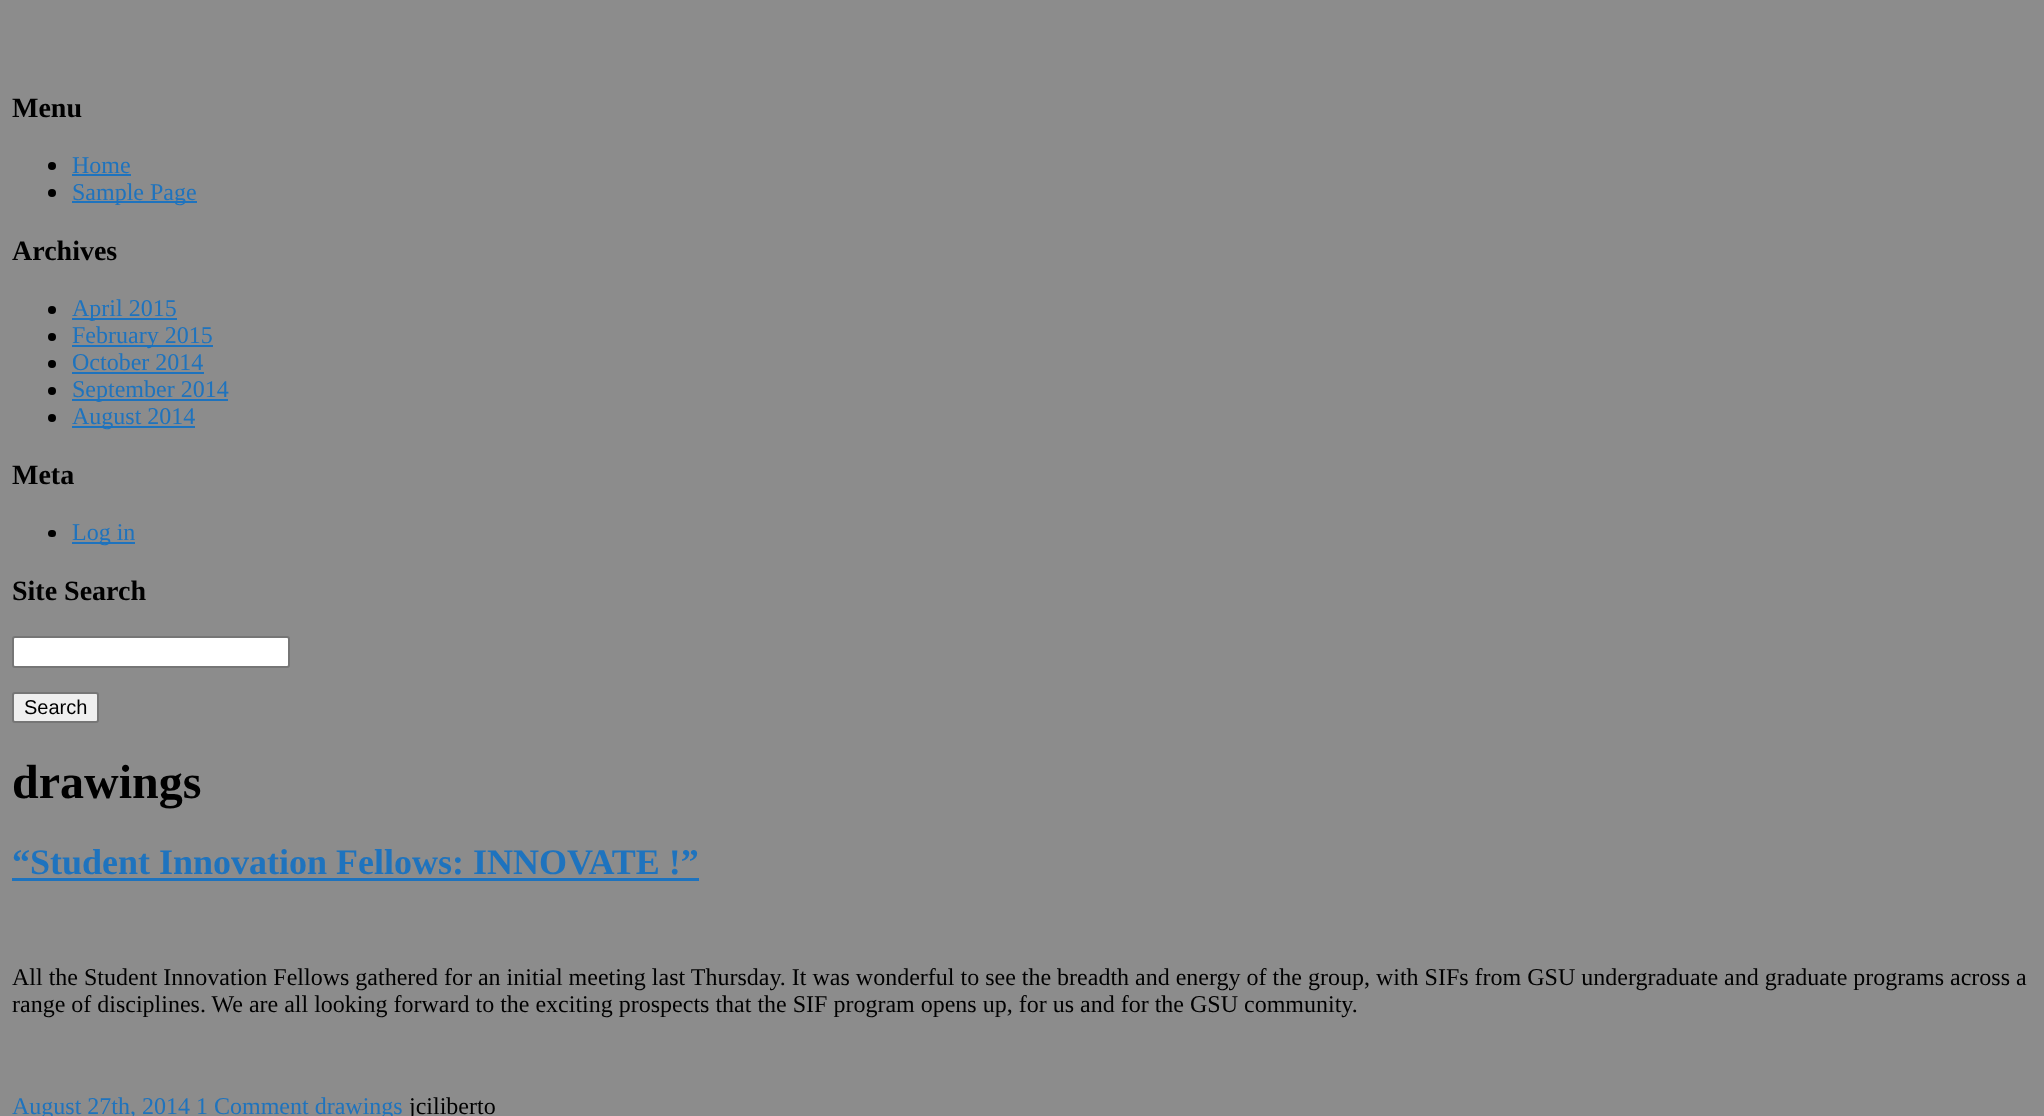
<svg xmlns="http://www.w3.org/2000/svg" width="2044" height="1116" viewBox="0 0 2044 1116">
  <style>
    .t1 { font: bold 28px Liberation Serif; fill: #000; }
    .t2 { font: 24px Liberation Serif; fill: #1e73be; }
    .t3 { font: 20px Liberation Sans; fill: #000; }
    .t4 { font: bold 48px Liberation Serif; fill: #000; }
    .t5 { font: bold 36px Liberation Serif; fill: #1e73be; }
    .t6 { font: 24px Liberation Serif; fill: #000; }
  </style>
  <rect width="100%" height="100%" fill="#8c8c8c"/>
  <text x="12" y="117" class="t1">Menu</text>
  <circle cx="52" cy="166" r="4" fill="#000"/>
  <text x="72" y="173" class="t2">Home</text>
  <rect x="72" y="174" width="59" height="2" fill="#1e73be"/>
  <circle cx="52" cy="193" r="4" fill="#000"/>
  <rect x="72" y="201" width="125" height="2" fill="#1e73be"/>
  <text x="72" y="200" class="t2">Sample Page</text>
  <text x="12" y="260" class="t1">Archives</text>
  <circle cx="52" cy="310" r="4" fill="#000"/>
  <rect x="72" y="318" width="105" height="2" fill="#1e73be"/>
  <text x="72" y="316" class="t2">April 2015</text>
  <circle cx="52" cy="337" r="4" fill="#000"/>
  <rect x="72" y="345" width="141" height="2" fill="#1e73be"/>
  <text x="72" y="343" class="t2">February 2015</text>
  <circle cx="52" cy="364" r="4" fill="#000"/>
  <text x="72" y="370" class="t2">October 2014</text>
  <rect x="72" y="372" width="132" height="2" fill="#1e73be"/>
  <circle cx="52" cy="391" r="4" fill="#000"/>
  <rect x="72" y="399" width="156" height="2" fill="#1e73be"/>
  <text x="72" y="397" class="t2">September 2014</text>
  <circle cx="52" cy="418" r="4" fill="#000"/>
  <rect x="72" y="426" width="123" height="2" fill="#1e73be"/>
  <text x="72" y="424" class="t2">August 2014</text>
  <text x="12" y="484" class="t1">Meta</text>
  <rect x="48" y="530" width="8" height="7" rx="3.5" fill="#000"/>
  <rect x="72" y="542" width="63" height="2" fill="#1e73be"/>
  <text x="72" y="540" class="t2">Log in</text>
  <text x="12" y="600" class="t1">Site Search</text>
  <rect x="13" y="637" width="276" height="30" rx="2" fill="#fff" stroke="#767676" stroke-width="2"/>
  <rect x="13" y="693" width="85" height="29" rx="2" fill="#efefef" stroke="#767676" stroke-width="2"/>
  <text x="24" y="714" class="t3">Search</text>
  <text x="12" y="798" class="t4">drawings</text>
  <text x="12" y="874" class="t5">“Student Innovation Fellows: INNOVATE !”</text>
  <rect x="12" y="878" width="687" height="3" fill="#1e73be"/>
  <text x="12" y="985" class="t6">All the Student Innovation Fellows gathered for an initial meeting last Thursday. It was wonderful to see the breadth and energy of the group, with SIFs from GSU undergraduate and graduate programs across a</text>
  <text x="12" y="1012" class="t6">range of disciplines. We are all looking forward to the exciting prospects that the SIF program opens up, for us and for the GSU community.</text>
  <text x="12" y="1114" class="t2">August 27th, 2014 1 Comment drawings</text>
  <text x="409" y="1114" class="t6">jciliberto</text>
</svg>
